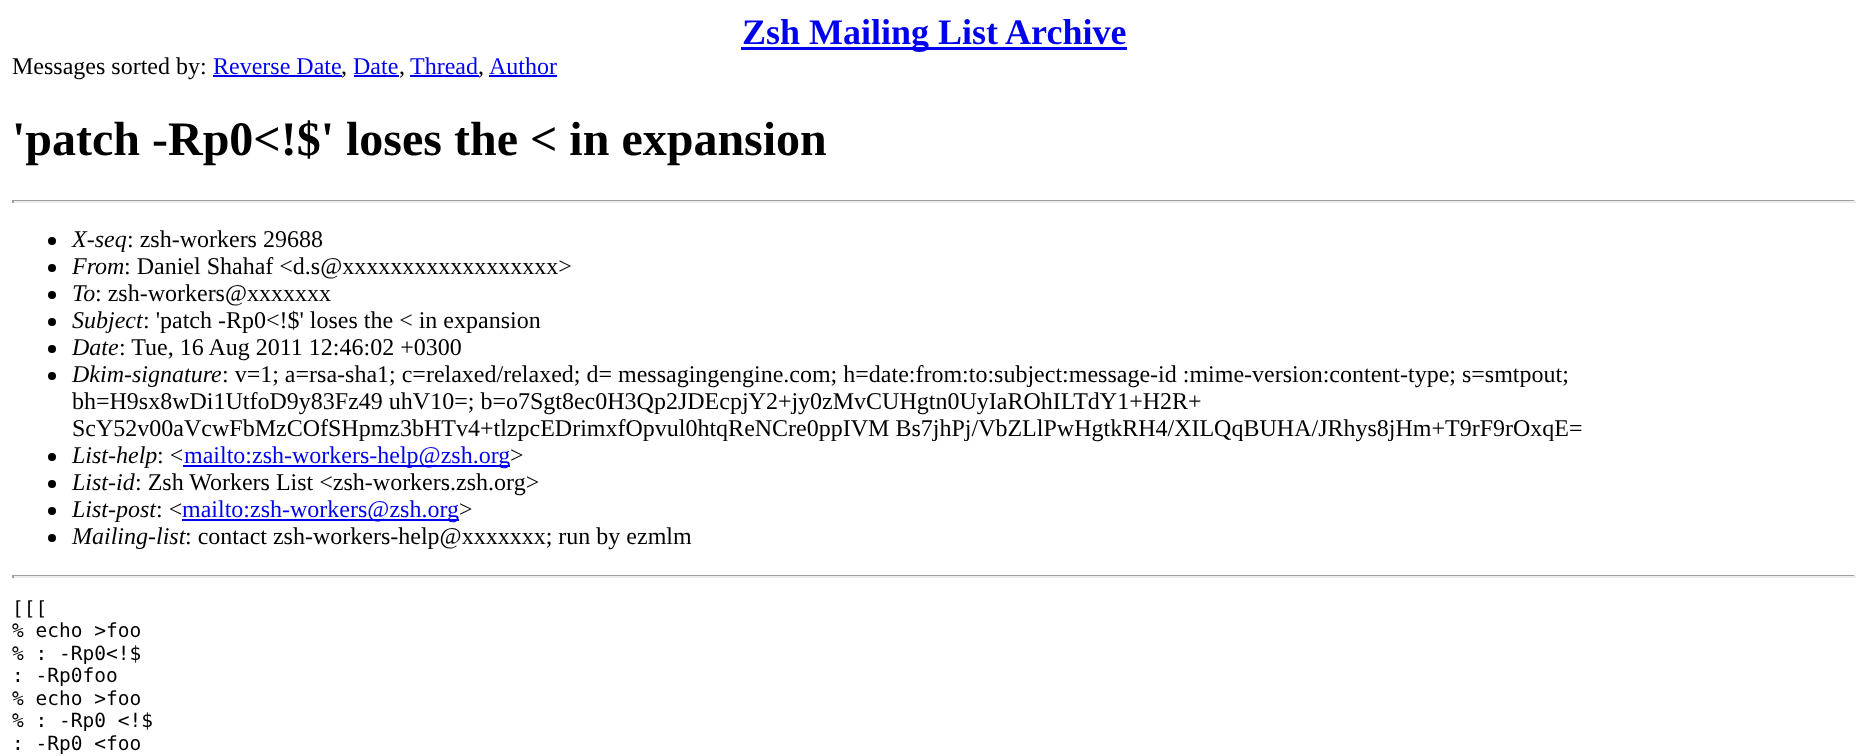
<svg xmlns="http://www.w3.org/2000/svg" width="1867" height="756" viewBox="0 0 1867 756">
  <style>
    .t1 { font: bold 36px Liberation Serif; fill: #00e; }
    .t2 { font: 24px Liberation Serif; fill: #000; }
    .t3 { font: 24px Liberation Serif; fill: #00e; }
    .t4 { font: bold 48px Liberation Serif; fill: #000; }
    .t5 { font: italic 24px Liberation Serif; fill: #000; }
    .t6 { font: 19.5px DejaVu Sans Mono; fill: #000; }
  </style>
  <rect width="100%" height="100%" fill="#fff"/>
  <rect x="741" y="47" width="386" height="3" fill="#00e"/>
  <text x="742" y="44" class="t1">Zsh Mailing List Archive</text>
  <text x="12" y="74" class="t2">Messages sorted by:</text>
  <text x="213" y="74" class="t3">Reverse Date</text>
  <rect x="213" y="75" width="129" height="2" fill="#00e"/>
  <text x="341" y="74" class="t2">,</text>
  <text x="353" y="74" class="t3">Date</text>
  <rect x="354" y="75" width="45" height="2" fill="#00e"/>
  <text x="399" y="74" class="t2">,</text>
  <text x="410" y="74" class="t3">Thread</text>
  <rect x="410" y="75" width="69" height="2" fill="#00e"/>
  <text x="478" y="74" class="t2">,</text>
  <text x="489" y="74" class="t3">Author</text>
  <rect x="489" y="75" width="68" height="2" fill="#00e"/>
  <text x="12" y="155" class="t4">'patch -Rp0&lt;!$' loses the &lt; in expansion</text>
  <rect x="12" y="200" width="1844" height="1" fill="#9f9f9f"/>
  <rect x="1854" y="200" width="2" height="3" fill="#eee"/>
  <rect x="12" y="201" width="1844" height="2" fill="#eee"/>
  <rect x="12" y="200" width="2" height="3" fill="#9f9f9f"/>
  <circle cx="52" cy="241" r="4" fill="#000"/>
  <text x="72" y="247" class="t5">X-seq</text>
  <text x="127" y="247" class="t2">: zsh-workers 29688</text>
  <circle cx="52" cy="268" r="4" fill="#000"/>
  <text x="72" y="274" class="t5">From</text>
  <text x="124" y="274" class="t2">: Daniel Shahaf &lt;d.s@xxxxxxxxxxxxxxxxxx&gt;</text>
  <circle cx="52" cy="295" r="4" fill="#000"/>
  <text x="72" y="301" class="t5">To</text>
  <text x="95" y="301" class="t2">: zsh-workers@xxxxxxx</text>
  <circle cx="52" cy="322" r="4" fill="#000"/>
  <text x="72" y="328" class="t5">Subject</text>
  <text x="143" y="328" class="t2">: 'patch -Rp0&lt;!$' loses the &lt; in expansion</text>
  <circle cx="52" cy="349" r="4" fill="#000"/>
  <text x="72" y="355" class="t5">Date</text>
  <text x="119" y="355" class="t2">: Tue, 16 Aug 2011 12:46:02 +0300</text>
  <circle cx="52" cy="376" r="4" fill="#000"/>
  <text x="72" y="382" class="t5">Dkim-signature</text>
  <text x="222" y="382" class="t2">: v=1; a=rsa-sha1; c=relaxed/relaxed; d= messagingengine.com; h=date:from:to:subject:message-id :mime-version:content-type; s=smtpout;</text>
  <text x="72" y="409" class="t2">bh=H9sx8wDi1UtfoD9y83Fz49 uhV10=; b=o7Sgt8ec0H3Qp2JDEcpjY2+jy0zMvCUHgtn0UyIaROhILTdY1+H2R+</text>
  <text x="72" y="436" class="t2">ScY52v00aVcwFbMzCOfSHpmz3bHTv4+tlzpcEDrimxfOpvul0htqReNCre0ppIVM Bs7jhPj/VbZLlPwHgtkRH4/XILQqBUHA/JRhys8jHm+T9rF9rOxqE=</text>
  <circle cx="52" cy="457" r="4" fill="#000"/>
  <text x="72" y="463" class="t5">List-help</text>
  <text x="157" y="463" class="t2">: &lt;</text>
  <rect x="183" y="465" width="327" height="2" fill="#00e"/>
  <text x="184" y="463" class="t3">mailto:zsh-workers-help@zsh.org</text>
  <text x="510" y="463" class="t2">&gt;</text>
  <circle cx="52" cy="484" r="4" fill="#000"/>
  <text x="72" y="490" class="t5">List-id</text>
  <text x="135" y="490" class="t2">: Zsh Workers List &lt;zsh-workers.zsh.org&gt;</text>
  <circle cx="52" cy="511" r="4" fill="#000"/>
  <text x="72" y="517" class="t5">List-post</text>
  <text x="156" y="517" class="t2">: &lt;</text>
  <rect x="182" y="519" width="277" height="2" fill="#00e"/>
  <text x="182" y="517" class="t3">mailto:zsh-workers@zsh.org</text>
  <text x="459" y="517" class="t2">&gt;</text>
  <circle cx="52" cy="538" r="4" fill="#000"/>
  <text x="72" y="544" class="t5">Mailing-list</text>
  <text x="185" y="544" class="t2">: contact zsh-workers-help@xxxxxxx; run by ezmlm</text>
  <rect x="12" y="575" width="1844" height="1" fill="#9f9f9f"/>
  <rect x="1854" y="575" width="2" height="3" fill="#eee"/>
  <rect x="12" y="576" width="1844" height="2" fill="#eee"/>
  <rect x="12" y="575" width="2" height="3" fill="#9f9f9f"/>
  <text x="12" y="615" class="t6">[[[</text>
  <text x="12" y="637" class="t6">% echo &gt;foo</text>
  <text x="12" y="660" class="t6">% : -Rp0&lt;!$</text>
  <text x="12" y="682" class="t6">: -Rp0foo</text>
  <text x="12" y="705" class="t6">% echo &gt;foo</text>
  <text x="12" y="727" class="t6">% : -Rp0 &lt;!$</text>
  <text x="12" y="750" class="t6">: -Rp0 &lt;foo</text>
</svg>
